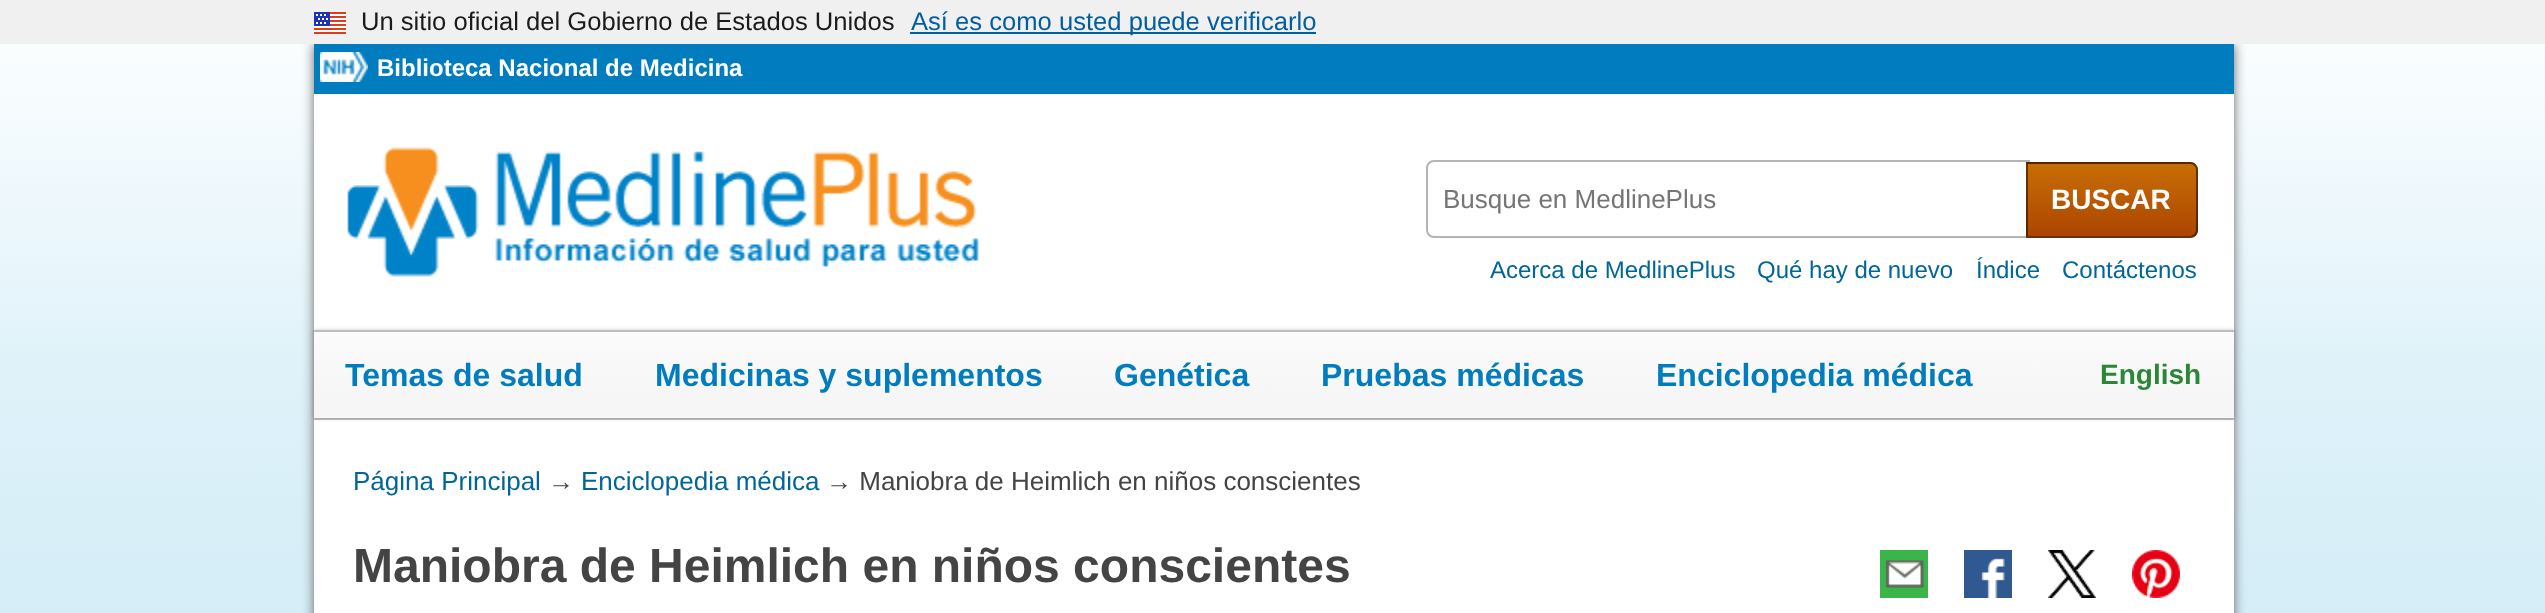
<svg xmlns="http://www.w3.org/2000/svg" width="2545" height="613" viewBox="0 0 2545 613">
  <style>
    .t1 { font: 25.6px Liberation Sans; fill: #1b1b1b; }
    .t2 { font: 25.6px Liberation Sans; fill: #005ea2; }
    .t3 { font: bold 24px Liberation Sans; fill: #fff; }
    .t4 { font: 26px Liberation Sans; fill: #757575; }
    .t5 { font: bold 28px Liberation Sans; fill: #fff; }
    .t6 { font: 24px Liberation Sans; fill: #069; }
    .t7 { font: bold 32px Liberation Sans; fill: #007cbf; }
    .t8 { font: bold 28px Liberation Sans; fill: #2b8737; }
    .t9 { font: 26px Liberation Sans; fill: #069; }
    .t10 { font: 26px Liberation Sans; fill: #444; }
    .t11 { font: bold 48px Liberation Sans; fill: #444; }
  </style>
  <defs>
    <linearGradient id="g1" gradientUnits="userSpaceOnUse" x1="1273" y1="0" x2="1273" y2="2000"><stop offset="0" stop-color="#feffff"/><stop offset="0.2" stop-color="#ddf1f9"/><stop offset="1" stop-color="#a0d8ef"/></linearGradient>
    <linearGradient id="g2" gradientUnits="userSpaceOnUse" x1="1274" y1="332" x2="1274" y2="418"><stop offset="0.1" stop-color="#fafafa"/><stop offset="0.75" stop-color="#f6f6f6"/></linearGradient>
    <clipPath id="clip1"><path d="M2026 162H2190C2194.5 162 2198 165.5 2198 170V230C2198 234.5 2194.5 238 2190 238H2026Z"/></clipPath>
    <linearGradient id="g3" gradientUnits="userSpaceOnUse" x1="2112" y1="92" x2="2112" y2="164"><stop offset="0" stop-color="#c76e06"/><stop offset="1" stop-color="#ad4500"/></linearGradient>
    <linearGradient id="g4" gradientUnits="userSpaceOnUse" x1="2112" y1="164" x2="2112" y2="236"><stop offset="0" stop-color="#c76e06"/><stop offset="1" stop-color="#ad4500"/></linearGradient>
    <linearGradient id="g5" gradientUnits="userSpaceOnUse" x1="2112" y1="236" x2="2112" y2="308"><stop offset="0" stop-color="#c76e06"/><stop offset="1" stop-color="#ad4500"/></linearGradient>
  </defs>
  <rect width="100%" height="100%" fill="#fff"/>
  <rect x="0" y="44" width="2545" height="569" fill="url(#g1)"/>
  <rect x="314" y="44" width="1920" height="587" fill="#666" filter="blur(6px)"/>
  <rect x="0" y="0" width="2545" height="44" fill="#f0f0f0"/>
  <image x="314" y="12" width="32" height="22" href="images/1.png"/>
  <text x="361" y="30" class="t1">Un sitio oficial del Gobierno de Estados Unidos</text>
  <rect x="910" y="32" width="406" height="2" fill="#005ea2"/>
  <text x="911" y="30" class="t2">Así es como usted puede verificarlo</text>
  <rect x="314" y="94" width="1920" height="519" fill="#fff"/>
  <rect x="314" y="44" width="1920" height="50" fill="#007cbf"/>
  <image x="320" y="52" width="48" height="30" href="images/2.png"/>
  <text x="377" y="76" class="t3">Biblioteca Nacional de Medicina</text>
  <image x="347" y="147" width="632" height="130" href="images/3.png"/>
  <rect x="314" y="418" width="1920" height="2" fill="#bdbdbd"/>
  <rect x="314" y="330" width="1920" height="88" fill="#00000033" filter="blur(2px)"/>
  <rect x="314" y="332" width="1920" height="86" fill="url(#g2)"/>
  <rect x="314" y="330" width="1920" height="2" fill="#bdbdbd"/>
  <path d="M1434 161H2029V237H1434C1430 237 1427 234 1427 230V168C1427 164 1430 161 1434 161Z" fill="none" stroke="#b4b4b4" stroke-width="2"/>
  <text x="1443" y="208" class="t4">Busque en MedlinePlus</text>
  <g clip-path="url(#clip1)">
    <rect x="2026" y="162" width="172" height="2" fill="url(#g3)"/>
    <rect x="2026" y="164" width="172" height="72" fill="url(#g4)"/>
    <rect x="2026" y="236" width="172" height="2" fill="url(#g5)"/>
  </g>
  <path d="M2027 163H2190C2194 163 2197 166 2197 170V230C2197 234 2194 237 2190 237H2027Z" fill="none" stroke="#00000080" stroke-width="2"/>
  <text x="2051" y="209" class="t5">BUSCAR</text>
  <text x="1490" y="278" class="t6">Acerca de MedlinePlus</text>
  <text x="1757" y="278" class="t6">Qué hay de nuevo</text>
  <text x="1976" y="278" class="t6">Índice</text>
  <text x="2062" y="278" class="t6">Contáctenos</text>
  <text x="345" y="386" class="t7">Temas de salud</text>
  <text x="655" y="386" class="t7">Medicinas y suplementos</text>
  <text x="1114" y="386" class="t7">Genética</text>
  <text x="1321" y="386" class="t7">Pruebas médicas</text>
  <text x="1656" y="386" class="t7">Enciclopedia médica</text>
  <text x="2100" y="384" class="t8">English</text>
  <text x="353" y="490" class="t9">Página Principal</text>
  <text x="548" y="490" class="t10">→</text>
  <text x="581" y="490" class="t9">Enciclopedia médica</text>
  <text x="826" y="490" class="t10">→ Maniobra de Heimlich en niños conscientes</text>
  <text x="353" y="582" class="t11">Maniobra de Heimlich en niños conscientes</text>
  <image x="1880" y="550" width="48" height="48" href="images/4.png"/>
  <image x="1964" y="550" width="48" height="48" href="images/5.png"/>
  <image x="2048" y="550" width="48" height="48" href="images/6.png"/>
  <image x="2132" y="550" width="48" height="48" href="images/7.png"/>
</svg>
